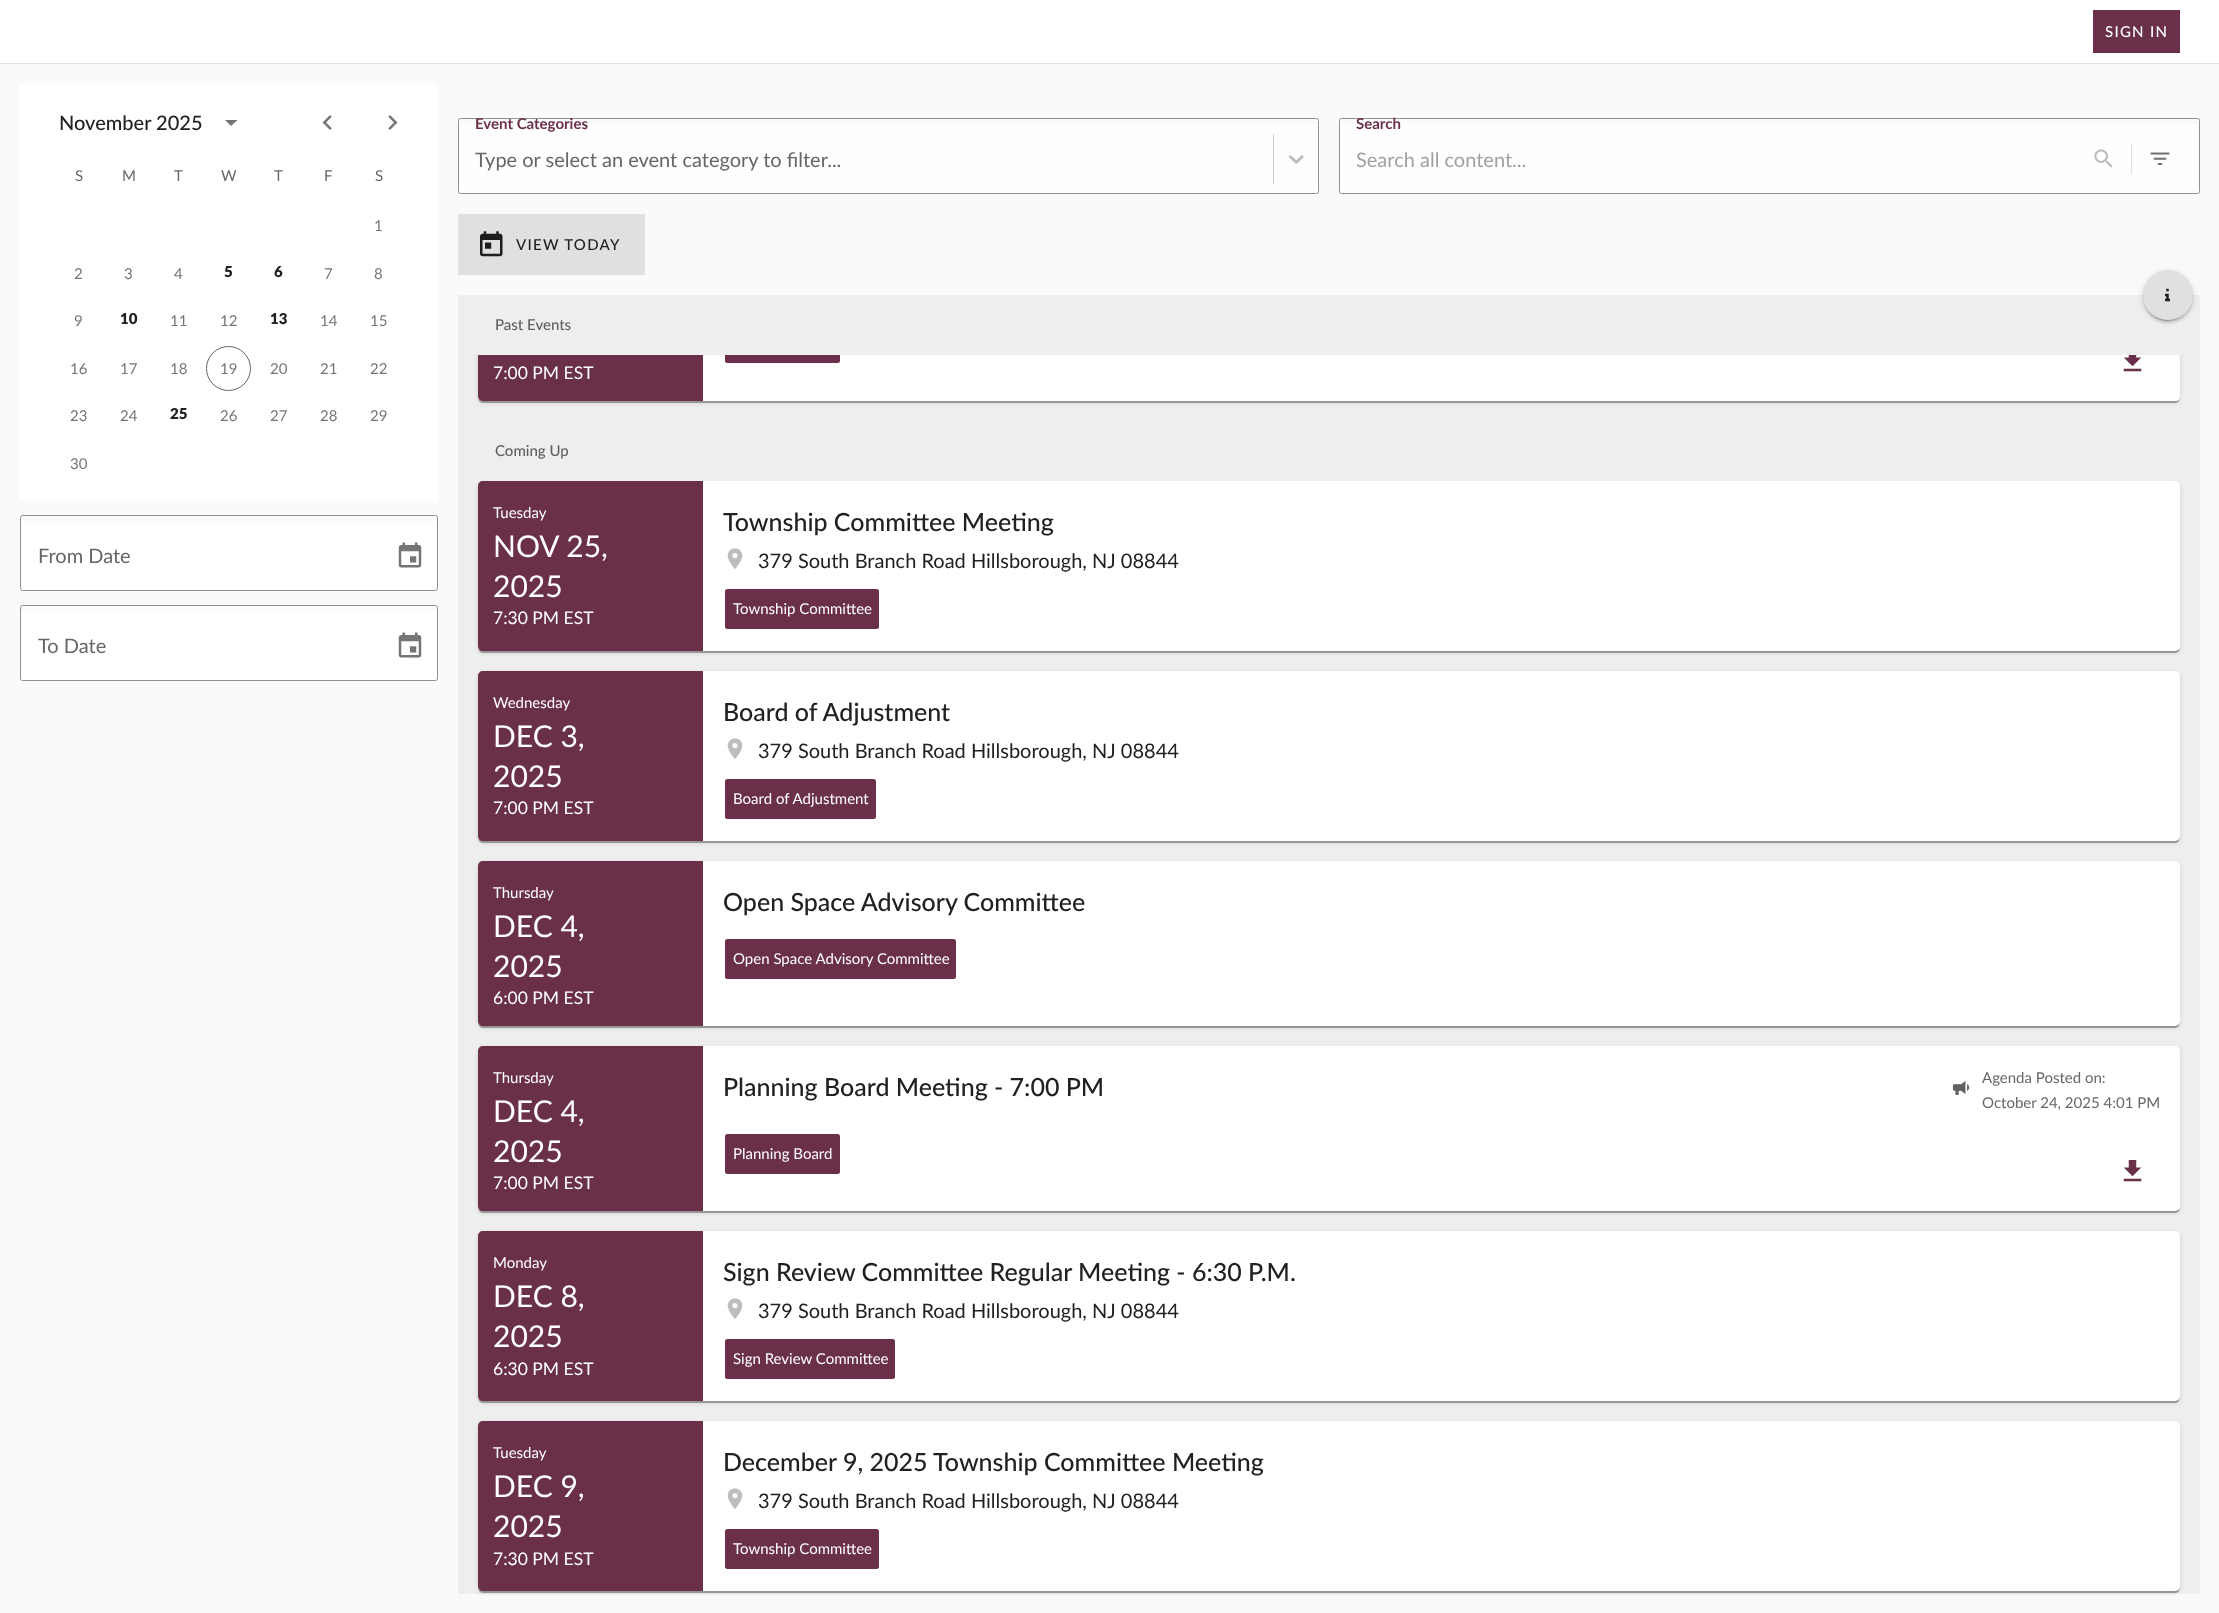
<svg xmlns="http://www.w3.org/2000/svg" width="2219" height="1613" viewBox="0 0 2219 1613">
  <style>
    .t1 { font: 500 15px Lato; letter-spacing: 1.25px; fill: #fff; }
    .t2 { font: 500 20px Lato; fill: #212121; }
    .t3 { font: 15px Lato; fill: #666; }
    .t4 { font: 15px Lato; fill: #757575; }
    .t5 { font: 800 15px Lato; fill: #212121; }
    .t6 { font: 20px Lato; fill: #666; }
    .t7 { font: bold 15px Lato; fill: #6a3049; }
    .t8 { font: 20px Lato; fill: #a1a1a1; }
    .t9 { font: 500 15px Lato; letter-spacing: 1.25px; fill: #212121; }
    .t10 { font: 500 15px Lato; fill: #5f5f5f; }
    .t11 { font: 17.5px Lato; fill: #fff; }
    .t12 { font: 15px Lato; fill: #fff; }
    .t13 { font: 30px Lato; fill: #fff; }
    .t14 { font: 500 25px Lato; fill: #212121; }
    .t15 { font: 20px Lato; fill: #212121; }
  </style>
  <defs>
    <clipPath id="clip1"><rect x="38" y="631" width="68" height="29"/></clipPath>
    <clipPath id="clip2"><rect x="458" y="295" width="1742" height="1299"/></clipPath>
    <clipPath id="clip3"><path d="M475 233H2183V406H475ZM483 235H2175C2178 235 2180 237 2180 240V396C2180 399 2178 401 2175 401H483C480 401 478 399 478 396V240C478 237 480 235 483 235Z" clip-rule="evenodd"/></clipPath>
    <clipPath id="clip4"><path d="M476 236H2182V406H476ZM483 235H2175C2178 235 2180 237 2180 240V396C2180 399 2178 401 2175 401H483C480 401 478 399 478 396V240C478 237 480 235 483 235Z" clip-rule="evenodd"/></clipPath>
  </defs>
  <rect width="100%" height="100%" fill="#fafafa"/>
  <rect x="0" y="0" width="2219" height="63" fill="#fff"/>
  <rect x="0" y="63" width="2219" height="1" fill="#e0e0e0"/>
  <rect x="2093" y="10" width="87" height="43" fill="#6a3049"/>
  <text x="2105" y="37" class="t1">SIGN IN</text>
  <rect x="20" y="84" width="418" height="417" fill="#fff"/>
  <text x="59" y="130" class="t2">November 2025</text>
  <path d="M225 120L231 126L237.5 120Z" fill="#757575"/>
  <image x="322" y="115" width="10" height="15" href="images/1.png"/>
  <image x="388" y="115" width="10" height="15" href="images/2.png"/>
  <text x="75" y="181" class="t3">S</text>
  <text x="122" y="181" class="t3">M</text>
  <text x="174" y="181" class="t3">T</text>
  <text x="221" y="181" class="t3">W</text>
  <text x="274" y="181" class="t3">T</text>
  <text x="324" y="181" class="t3">F</text>
  <text x="375" y="181" class="t3">S</text>
  <text x="374" y="231" class="t4">1</text>
  <text x="74" y="279" class="t4">2</text>
  <text x="124" y="279" class="t4">3</text>
  <text x="174" y="279" class="t4">4</text>
  <text x="224" y="277" class="t5">5</text>
  <text x="274" y="277" class="t5">6</text>
  <text x="324" y="279" class="t4">7</text>
  <text x="374" y="279" class="t4">8</text>
  <text x="74" y="326" class="t4">9</text>
  <text x="120" y="324" class="t5">10</text>
  <text x="170" y="326" class="t4">11</text>
  <text x="220" y="326" class="t4">12</text>
  <text x="270" y="324" class="t5">13</text>
  <text x="320" y="326" class="t4">14</text>
  <text x="370" y="326" class="t4">15</text>
  <text x="70" y="374" class="t4">16</text>
  <text x="120" y="374" class="t4">17</text>
  <text x="170" y="374" class="t4">18</text>
  <circle cx="228.5" cy="368.5" r="22" fill="none" stroke="#666"/>
  <text x="220" y="374" class="t4">19</text>
  <text x="270" y="374" class="t4">20</text>
  <text x="320" y="374" class="t4">21</text>
  <text x="370" y="374" class="t4">22</text>
  <text x="70" y="421" class="t4">23</text>
  <text x="120" y="421" class="t4">24</text>
  <text x="170" y="419" class="t5">25</text>
  <text x="220" y="421" class="t4">26</text>
  <text x="270" y="421" class="t4">27</text>
  <text x="320" y="421" class="t4">28</text>
  <text x="370" y="421" class="t4">29</text>
  <text x="70" y="469" class="t4">30</text>
  <rect x="20" y="521" width="418" height="70" rx="5" fill="#fff"/>
  <image x="398" y="542" width="24" height="26" href="images/3.png"/>
  <rect x="20.5" y="515.5" width="417" height="75" rx="2" fill="none" stroke="#909090"/>
  <text x="38" y="563" class="t6">From Date</text>
  <rect x="20" y="611" width="418" height="70" rx="5" fill="#fff"/>
  <image x="398" y="632" width="24" height="26" href="images/3.png"/>
  <rect x="20.5" y="605.5" width="417" height="75" rx="2" fill="none" stroke="#909090"/>
  <g clip-path="url(#clip1)">
    <text x="38" y="653" class="t6">To Date</text>
  </g>
  <rect x="458" y="124" width="861" height="70" rx="2.5" fill="#fefefe"/>
  <rect x="1273" y="134" width="1" height="50" fill="#ccc"/>
  <image x="1289" y="155" width="15" height="9" href="images/4.png"/>
  <rect x="458.5" y="118.5" width="860" height="75" rx="2" fill="none" stroke="#909090"/>
  <text x="475" y="129" class="t7">Event Categories</text>
  <text x="475" y="167" class="t6">Type or select an event category to filter...</text>
  <rect x="1339" y="124" width="861" height="70" rx="2.5" fill="#fefefe"/>
  <image x="2094" y="149" width="19" height="19" href="images/5.png"/>
  <rect x="2131" y="144" width="1" height="30" fill="#e0e0e0"/>
  <image x="2150" y="152" width="20" height="13" href="images/6.png"/>
  <rect x="1339.5" y="118.5" width="860" height="75" rx="2" fill="none" stroke="#909090"/>
  <text x="1356" y="129" class="t7">Search</text>
  <text x="1356" y="167" class="t8">Search all content...</text>
  <rect x="458" y="214" width="187" height="61" fill="#e0e0e0"/>
  <image x="480" y="231" width="23" height="26" href="images/7.png"/>
  <text x="516" y="250" class="t9">VIEW TODAY</text>
  <rect x="458" y="295" width="1742" height="1299" fill="#eee"/>
  <g clip-path="url(#clip2)">
    <rect x="478" y="236" width="1702" height="167" rx="5" fill="#0000001f" filter="blur(2px)"/>
  </g>
  <g clip-path="url(#clip3)">
    <rect x="478" y="236" width="1702" height="167" rx="5" fill="#00000024" filter="blur(0.5px)"/>
  </g>
  <g clip-path="url(#clip4)">
    <rect x="479" y="239" width="1700" height="164" rx="4" fill="#00000033" filter="blur(0.5px)"/>
  </g>
  <path d="M478 295H2180V396C2180 399 2178 401 2175 401H483C480 401 478 399 478 396Z" fill="#fff"/>
  <rect x="725" y="323" width="115" height="40" rx="2.5" fill="#6a3049"/>
  <path d="M478 295H703V401H483C480 401 478 399 478 396Z" fill="#6a3049"/>
  <rect x="475" y="295" width="1708" height="60" fill="#eee"/>
  <rect x="2143" y="271" width="50" height="50" rx="25" fill="#0000001f" filter="blur(3px)"/>
  <rect x="2143" y="273" width="50" height="50" rx="25" fill="#00000024" filter="blur(1px)"/>
  <rect x="2145" y="276" width="45" height="45" rx="22.5" fill="#00000033" filter="blur(0.5px)"/>
  <circle cx="2168" cy="295" r="25" fill="#e0e0e0"/>
  <image x="2165" y="288" width="5" height="14" href="images/8.png"/>
  <text x="495" y="330" class="t10">Past Events</text>
  <text x="493" y="379" class="t11">7:00 PM EST</text>
  <image x="2123" y="355" width="19" height="17" href="images/9.png"/>
  <rect x="478" y="483" width="1702" height="170" rx="5" fill="#0000001f" filter="blur(2px)"/>
  <rect x="478" y="483" width="1702" height="170" rx="5" fill="#00000024" filter="blur(0.5px)"/>
  <rect x="483" y="480" width="1692" height="1" fill="#eee"/>
  <text x="495" y="456" class="t10">Coming Up</text>
  <rect x="479" y="485" width="1700" height="168" rx="4" fill="#00000033" filter="blur(0.5px)"/>
  <rect x="478" y="481" width="1702" height="170" rx="5" fill="#fff"/>
  <path d="M483 481H703V651H483C480 651 478 649 478 646V486C478 483 480 481 483 481Z" fill="#6a3049"/>
  <text x="493" y="518" class="t12">Tuesday</text>
  <text x="493" y="557" class="t13">NOV 25,</text>
  <text x="493" y="597" class="t13">2025</text>
  <text x="493" y="624" class="t11">7:30 PM EST</text>
  <text x="723" y="531" class="t14">Township Committee Meeting</text>
  <image x="727" y="548" width="16" height="21" href="images/10.png"/>
  <text x="758" y="568" class="t15">379 South Branch Road Hillsborough, NJ 08844</text>
  <rect x="725" y="589" width="154" height="40" rx="2.5" fill="#6a3049"/>
  <text x="733" y="614" class="t12">Township Committee</text>
  <rect x="478" y="673" width="1702" height="170" rx="5" fill="#0000001f" filter="blur(2px)"/>
  <rect x="478" y="673" width="1702" height="170" rx="5" fill="#00000024" filter="blur(0.5px)"/>
  <rect x="479" y="675" width="1700" height="168" rx="4" fill="#00000033" filter="blur(0.5px)"/>
  <rect x="478" y="671" width="1702" height="170" rx="5" fill="#fff"/>
  <path d="M483 671H703V841H483C480 841 478 839 478 836V676C478 673 480 671 483 671Z" fill="#6a3049"/>
  <text x="493" y="708" class="t12">Wednesday</text>
  <text x="493" y="747" class="t13">DEC 3,</text>
  <text x="493" y="787" class="t13">2025</text>
  <text x="493" y="814" class="t11">7:00 PM EST</text>
  <text x="723" y="721" class="t14">Board of Adjustment</text>
  <image x="727" y="738" width="16" height="21" href="images/10.png"/>
  <text x="758" y="758" class="t15">379 South Branch Road Hillsborough, NJ 08844</text>
  <rect x="725" y="779" width="151" height="40" rx="2.5" fill="#6a3049"/>
  <text x="733" y="804" class="t12">Board of Adjustment</text>
  <rect x="478" y="863" width="1702" height="165" rx="5" fill="#0000001f" filter="blur(2px)"/>
  <rect x="478" y="863" width="1702" height="165" rx="5" fill="#00000024" filter="blur(0.5px)"/>
  <rect x="479" y="865" width="1700" height="163" rx="4" fill="#00000033" filter="blur(0.5px)"/>
  <rect x="478" y="861" width="1702" height="165" rx="5" fill="#fff"/>
  <path d="M483 861H703V1026H483C480 1026 478 1024 478 1021V866C478 863 480 861 483 861Z" fill="#6a3049"/>
  <text x="493" y="898" class="t12">Thursday</text>
  <text x="493" y="937" class="t13">DEC 4,</text>
  <text x="493" y="977" class="t13">2025</text>
  <text x="493" y="1004" class="t11">6:00 PM EST</text>
  <text x="723" y="911" class="t14">Open Space Advisory Committee</text>
  <rect x="725" y="939" width="231" height="40" rx="2.5" fill="#6a3049"/>
  <text x="733" y="964" class="t12">Open Space Advisory Committee</text>
  <rect x="478" y="1048" width="1702" height="165" rx="5" fill="#0000001f" filter="blur(2px)"/>
  <rect x="478" y="1048" width="1702" height="165" rx="5" fill="#00000024" filter="blur(0.5px)"/>
  <rect x="479" y="1050" width="1700" height="163" rx="4" fill="#00000033" filter="blur(0.5px)"/>
  <rect x="478" y="1046" width="1702" height="165" rx="5" fill="#fff"/>
  <path d="M483 1046H703V1211H483C480 1211 478 1209 478 1206V1051C478 1048 480 1046 483 1046Z" fill="#6a3049"/>
  <text x="493" y="1083" class="t12">Thursday</text>
  <text x="493" y="1122" class="t13">DEC 4,</text>
  <text x="493" y="1162" class="t13">2025</text>
  <text x="493" y="1189" class="t11">7:00 PM EST</text>
  <text x="723" y="1096" class="t14">Planning Board Meeting - 7:00 PM</text>
  <image x="1952" y="1081" width="18" height="14" href="images/11.png"/>
  <text x="1982" y="1083" class="t3">Agenda Posted on:</text>
  <text x="1982" y="1108" class="t3">October 24, 2025 4:01 PM</text>
  <rect x="725" y="1134" width="115" height="40" rx="2.5" fill="#6a3049"/>
  <text x="733" y="1159" class="t12">Planning Board</text>
  <image x="2123" y="1160" width="19" height="22" href="images/12.png"/>
  <rect x="478" y="1233" width="1702" height="170" rx="5" fill="#0000001f" filter="blur(2px)"/>
  <rect x="478" y="1233" width="1702" height="170" rx="5" fill="#00000024" filter="blur(0.5px)"/>
  <rect x="479" y="1235" width="1700" height="168" rx="4" fill="#00000033" filter="blur(0.5px)"/>
  <rect x="478" y="1231" width="1702" height="170" rx="5" fill="#fff"/>
  <path d="M483 1231H703V1401H483C480 1401 478 1399 478 1396V1236C478 1233 480 1231 483 1231Z" fill="#6a3049"/>
  <text x="493" y="1268" class="t12">Monday</text>
  <text x="493" y="1307" class="t13">DEC 8,</text>
  <text x="493" y="1347" class="t13">2025</text>
  <text x="493" y="1375" class="t11">6:30 PM EST</text>
  <text x="723" y="1281" class="t14">Sign Review Committee Regular Meeting - 6:30 P.M.</text>
  <image x="727" y="1298" width="16" height="21" href="images/10.png"/>
  <text x="758" y="1318" class="t15">379 South Branch Road Hillsborough, NJ 08844</text>
  <rect x="725" y="1339" width="170" height="40" rx="2.5" fill="#6a3049"/>
  <text x="733" y="1364" class="t12">Sign Review Committee</text>
  <rect x="478" y="1423" width="1702" height="170" rx="5" fill="#0000001f" filter="blur(2px)"/>
  <rect x="478" y="1423" width="1702" height="170" rx="5" fill="#00000024" filter="blur(0.5px)"/>
  <rect x="479" y="1425" width="1700" height="168" rx="4" fill="#00000033" filter="blur(0.5px)"/>
  <rect x="478" y="1421" width="1702" height="170" rx="5" fill="#fff"/>
  <path d="M483 1421H703V1591H483C480 1591 478 1589 478 1586V1426C478 1423 480 1421 483 1421Z" fill="#6a3049"/>
  <text x="493" y="1458" class="t12">Tuesday</text>
  <text x="493" y="1497" class="t13">DEC 9,</text>
  <text x="493" y="1537" class="t13">2025</text>
  <text x="493" y="1565" class="t11">7:30 PM EST</text>
  <text x="723" y="1471" class="t14">December 9, 2025 Township Committee Meeting</text>
  <image x="727" y="1488" width="16" height="21" href="images/10.png"/>
  <text x="758" y="1508" class="t15">379 South Branch Road Hillsborough, NJ 08844</text>
  <rect x="725" y="1529" width="154" height="40" rx="2.5" fill="#6a3049"/>
  <text x="733" y="1554" class="t12">Township Committee</text>
</svg>
